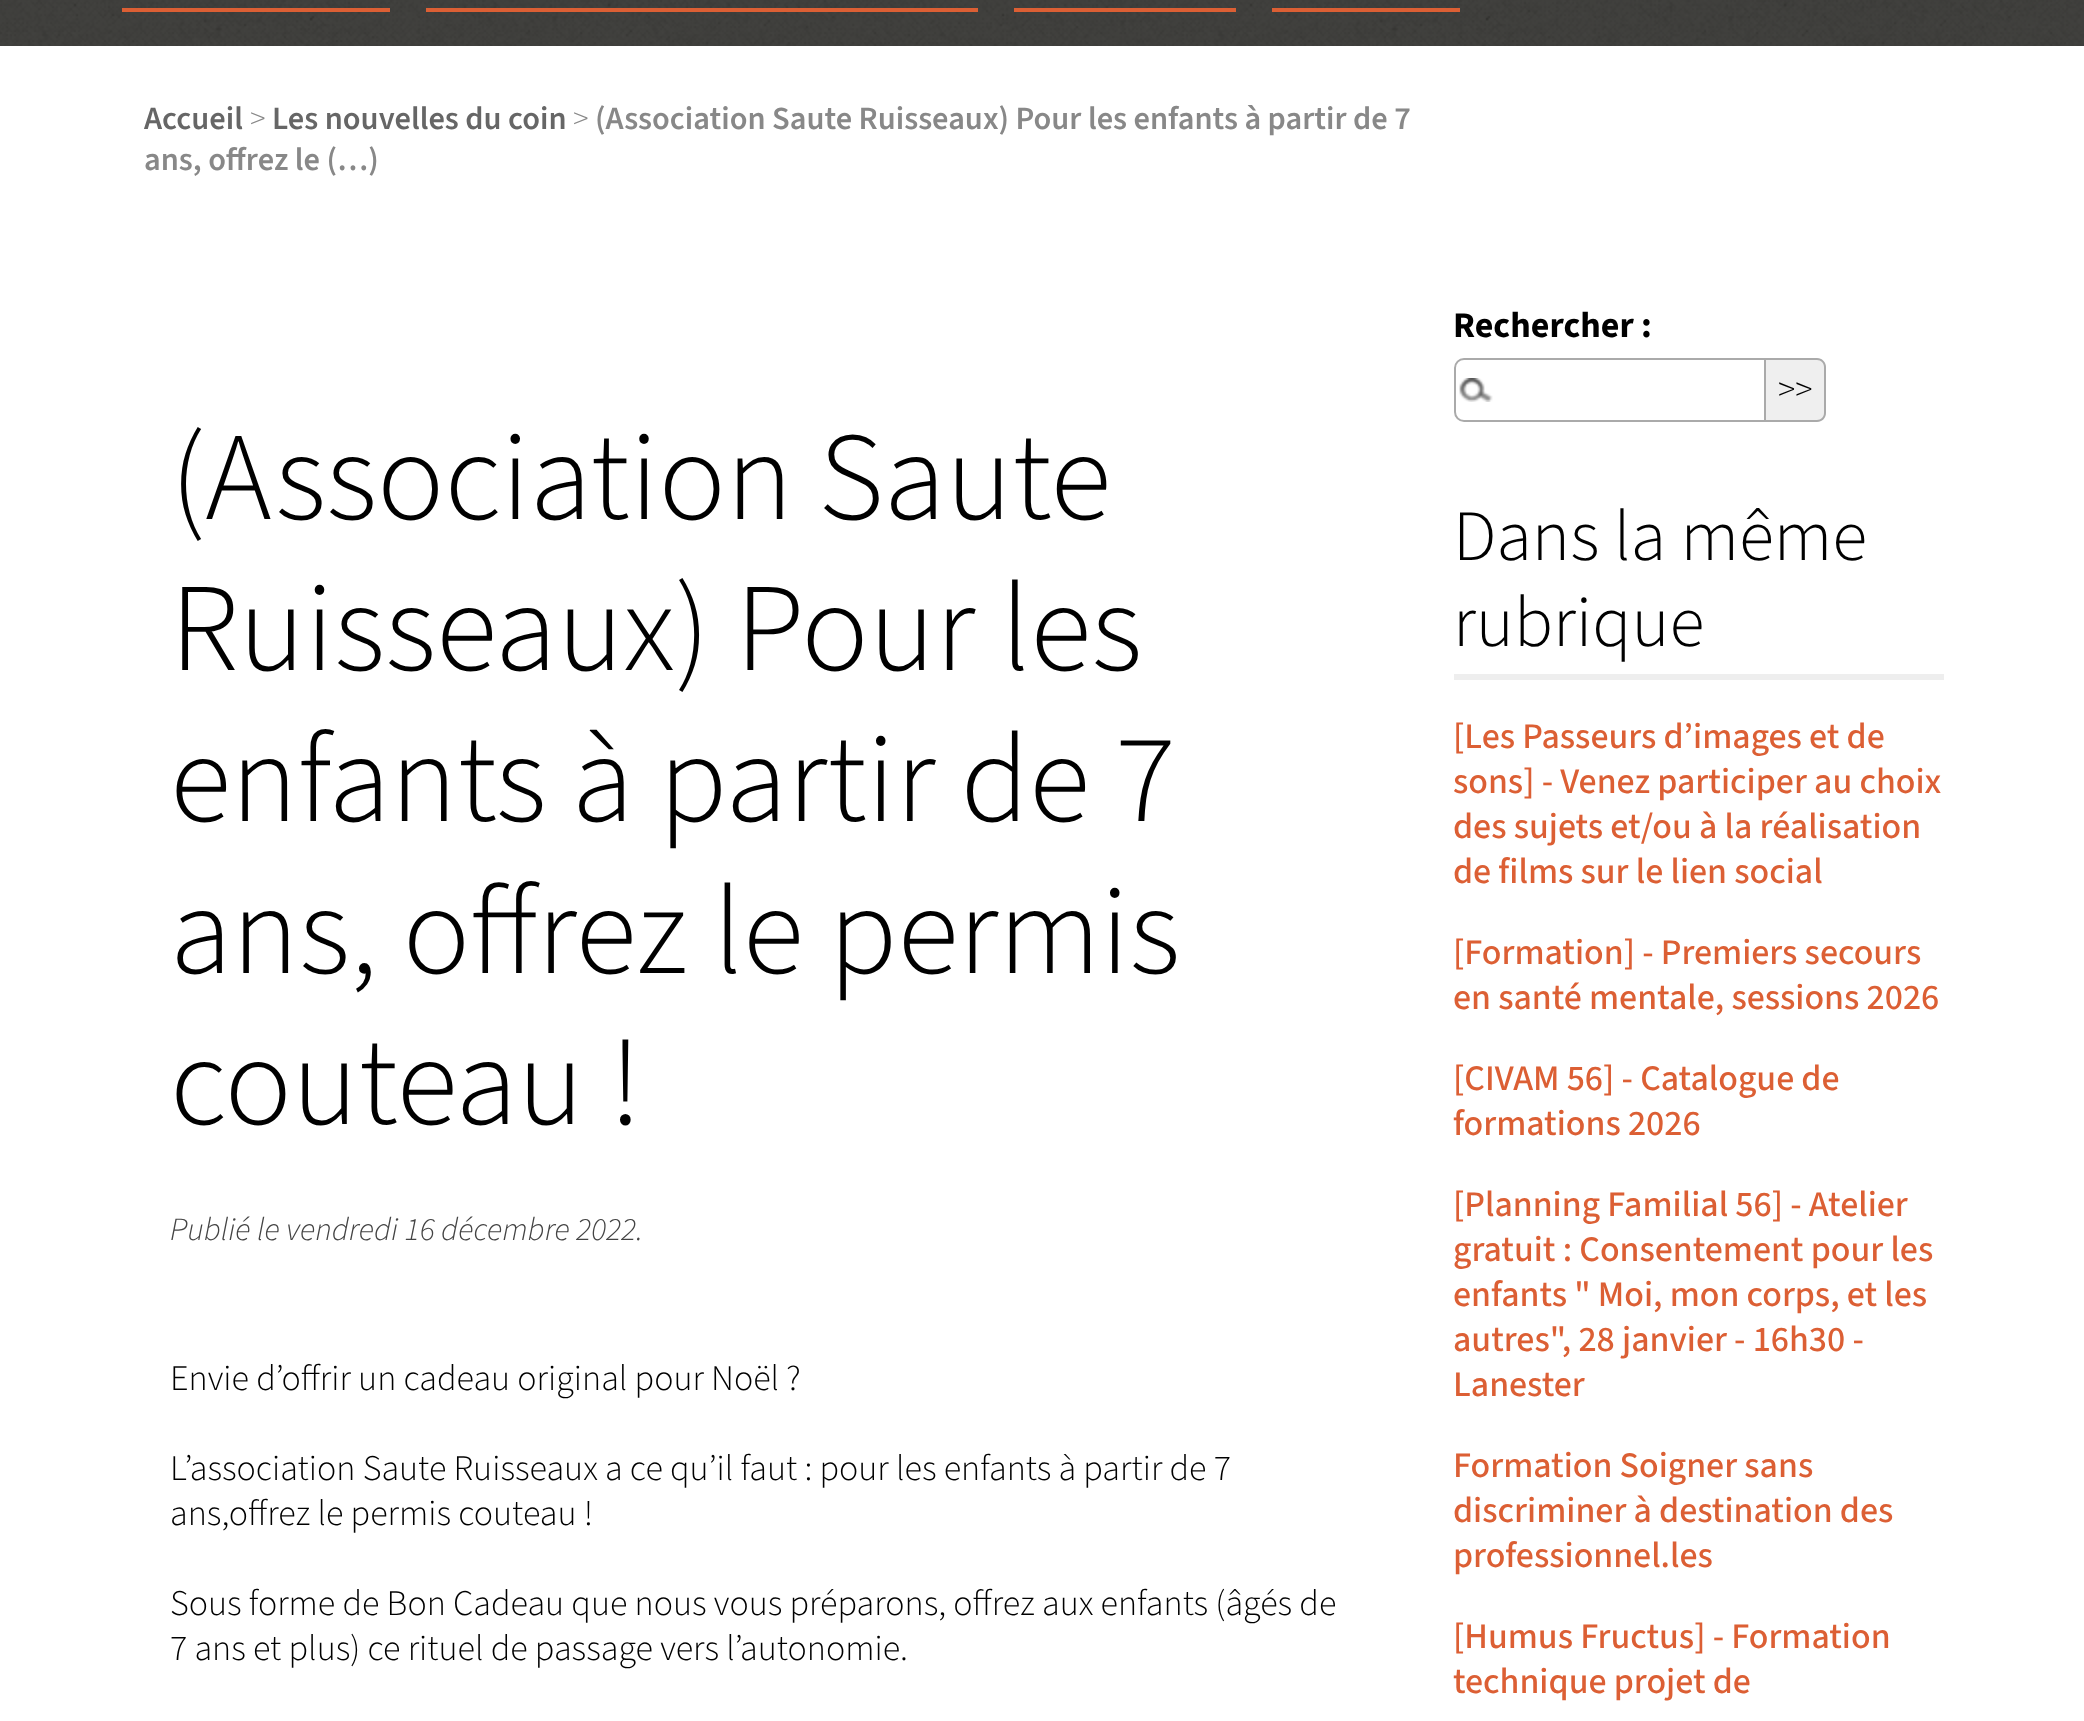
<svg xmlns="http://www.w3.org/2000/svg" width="2084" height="1721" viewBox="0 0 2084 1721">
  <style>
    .t1 { font: 600 32.4px 'Source Sans 3'; fill: #666; }
    .t2 { font: 300 32.4px 'Source Sans 3'; fill: #888; }
    .t3 { font: 600 32.4px 'Source Sans 3'; fill: #888; }
    .t4 { font: 300 126px 'Source Sans 3'; fill: #000; }
    .t5 { font: italic 300 32.4px 'Source Sans 3'; fill: #444; }
    .t6 { font: 300 36px 'Source Sans 3'; fill: #000; }
    .t7 { font: bold 36px 'Source Sans 3'; fill: #000; }
    .t8 { font: 300 72px 'Source Sans 3'; fill: #000; }
    .t9 { font: 500 36px 'Source Sans 3'; fill: #dc5f34; }
  </style>
  <rect width="100%" height="100%" fill="#fff"/>
  <image x="0" y="0" width="2084" height="46" href="images/1.png"/>
  <rect x="0" y="0" width="2084" height="46" fill="#000000b3"/>
  <rect x="122" y="8" width="268" height="4" fill="#dc5f34"/>
  <rect x="426" y="8" width="552" height="4" fill="#dc5f34"/>
  <rect x="1014" y="8" width="222" height="4" fill="#dc5f34"/>
  <rect x="1272" y="8" width="188" height="4" fill="#dc5f34"/>
  <text x="144" y="129" class="t1">Accueil</text>
  <text x="250" y="129" class="t2">&gt;</text>
  <text x="272" y="129" class="t1">Les nouvelles du coin</text>
  <text x="573" y="129" class="t2">&gt;</text>
  <text x="595" y="129" class="t3">(Association Saute Ruisseaux) Pour les enfants à partir de 7</text>
  <text x="144" y="170" class="t3">ans, offrez le (…)</text>
  <text x="170" y="519" class="t4">(Association Saute</text>
  <text x="170" y="670" class="t4">Ruisseaux) Pour les</text>
  <text x="170" y="821" class="t4">enfants à partir de 7</text>
  <text x="170" y="973" class="t4">ans, offrez le permis</text>
  <text x="170" y="1124" class="t4">couteau !</text>
  <text x="170" y="1240" class="t5">Publié le vendredi 16 décembre 2022.</text>
  <text x="170" y="1390" class="t6">Envie d’offrir un cadeau original pour Noël ?</text>
  <text x="170" y="1480" class="t6">L’association Saute Ruisseaux a ce qu’il faut : pour les enfants à partir de 7</text>
  <text x="170" y="1525" class="t6">ans,offrez le permis couteau !</text>
  <text x="170" y="1615" class="t6">Sous forme de Bon Cadeau que nous vous préparons, offrez aux enfants (âgés de</text>
  <text x="170" y="1660" class="t6">7 ans et plus) ce rituel de passage vers l’autonomie.</text>
  <text x="1453" y="337" class="t7">Rechercher :</text>
  <image x="1459" y="378" width="34" height="24" href="images/2.png"/>
  <path d="M1464 359H1765V421H1464C1459 421 1455 417 1455 412V368C1455 363 1459 359 1464 359Z" fill="none" stroke="#aaa" stroke-width="2"/>
  <path d="M1766 358H1816C1821.5 358 1826 362.5 1826 368V412C1826 417.5 1821.5 422 1816 422H1766Z" fill="#efefef"/>
  <path d="M1766 358H1817C1822 358 1826 362 1826 367V413C1826 418 1822 422 1817 422H1766ZM1766 360H1817C1821 360 1824 363 1824 367V413C1824 417 1821 420 1817 420H1766Z" fill="#aaa" fill-rule="evenodd"/>
  <text x="1778" y="401" class="t6">&gt;&gt;</text>
  <rect x="1454" y="674" width="490" height="6" fill="#eee"/>
  <text x="1453" y="560" class="t8">Dans la même</text>
  <text x="1453" y="646" class="t8">rubrique</text>
  <text x="1453" y="748" class="t9">[Les Passeurs d’images et de</text>
  <text x="1453" y="793" class="t9">sons] - Venez participer au choix</text>
  <text x="1453" y="838" class="t9">des sujets et/ou à la réalisation</text>
  <text x="1453" y="883" class="t9">de films sur le lien social</text>
  <text x="1453" y="964" class="t9">[Formation] - Premiers secours</text>
  <text x="1453" y="1009" class="t9">en santé mentale, sessions 2026</text>
  <text x="1453" y="1090" class="t9">[CIVAM 56] - Catalogue de</text>
  <text x="1453" y="1135" class="t9">formations 2026</text>
  <text x="1453" y="1216" class="t9">[Planning Familial 56] - Atelier</text>
  <text x="1453" y="1261" class="t9">gratuit : Consentement pour les</text>
  <text x="1453" y="1306" class="t9">enfants " Moi, mon corps, et les</text>
  <text x="1453" y="1351" class="t9">autres", 28 janvier - 16h30 -</text>
  <text x="1453" y="1396" class="t9">Lanester</text>
  <text x="1453" y="1477" class="t9">Formation Soigner sans</text>
  <text x="1453" y="1522" class="t9">discriminer à destination des</text>
  <text x="1453" y="1567" class="t9">professionnel.les</text>
  <text x="1453" y="1648" class="t9">[Humus Fructus] - Formation</text>
  <text x="1453" y="1693" class="t9">technique projet de</text>
</svg>
